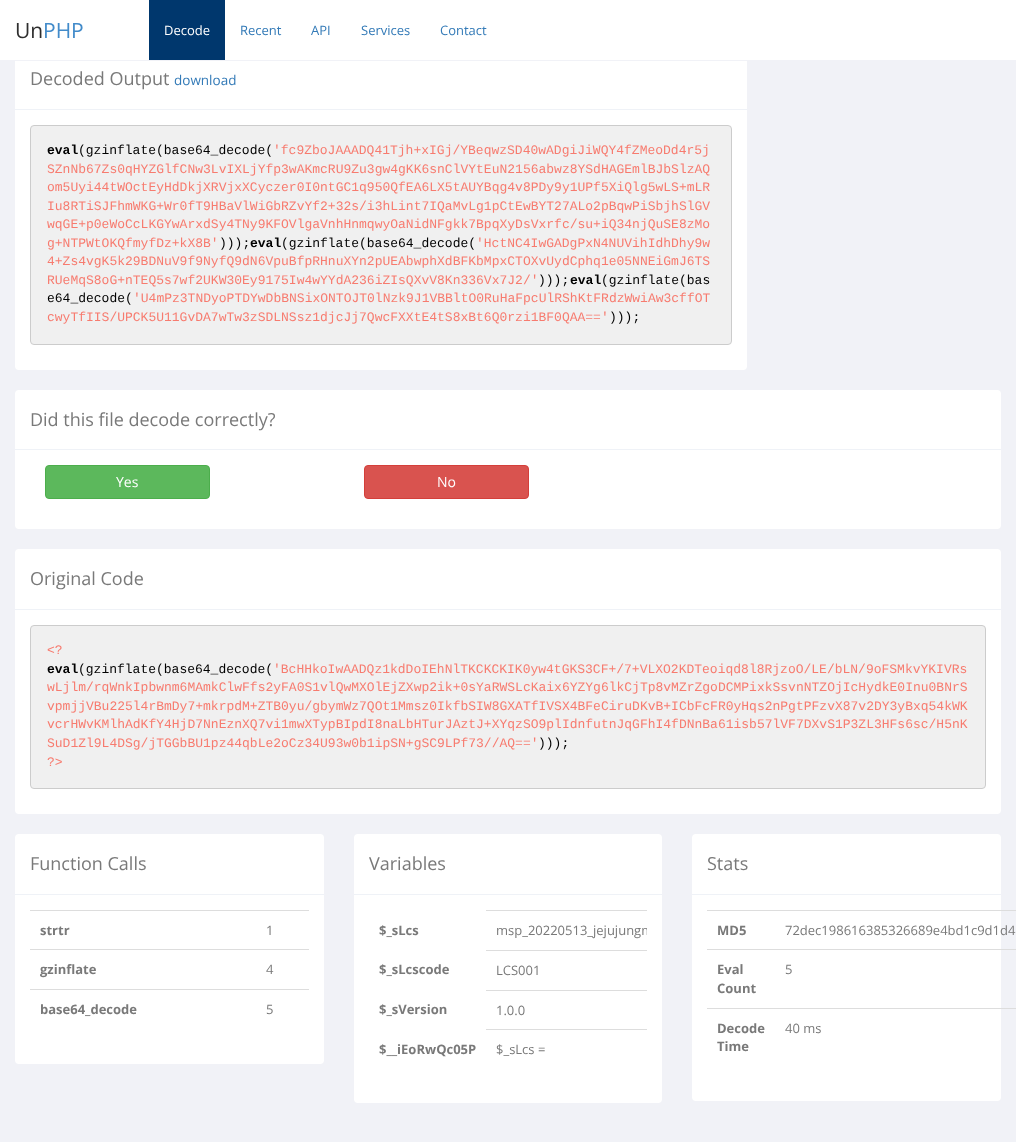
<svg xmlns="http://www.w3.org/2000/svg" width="1016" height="1142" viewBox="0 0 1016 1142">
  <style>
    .t1 { font: 21px Open Sans; fill: #2e2e2e; }
    .t2 { font: 21px Open Sans; fill: #428bca; }
    .t3 { font: 13px Open Sans; fill: #fff; }
    .t4 { font: 13px Open Sans; fill: #337ab7; }
    .t5 { font: 18px Open Sans; fill: #797979; }
    .t6 { font: 13.5px Open Sans; fill: #337ab7; }
    .t7 { font: bold 13px Liberation Mono; fill: #000; }
    .t8 { font: 13px Liberation Mono; fill: #000; }
    .t9 { font: 13px Liberation Mono; fill: #f77b6f; }
    .t10 { font: 14px Open Sans; fill: #fff; }
    .t11 { font: bold 13px Open Sans; fill: #797979; }
    .t12 { font: 13px Open Sans; fill: #797979; }
  </style>
  <defs>
    <clipPath id="clip1"><rect x="486" y="911" width="161" height="36"/></clipPath>
  </defs>
  <rect width="100%" height="100%" fill="#f1f2f7"/>
  <rect x="15" y="49" width="732" height="321" rx="4" fill="#fff"/>
  <rect x="0" y="0" width="1016" height="60" fill="#fff"/>
  <rect x="15" y="60" width="732" height="1" fill="#f1f2f7"/>
  <text x="15" y="38" class="t1">Un</text>
  <text x="43" y="38" class="t2">PHP</text>
  <rect x="149" y="0" width="76" height="60" fill="#00376d"/>
  <text x="164" y="35" class="t3">Decode</text>
  <text x="240" y="35" class="t4">Recent</text>
  <text x="311" y="35" class="t4">API</text>
  <text x="361" y="35" class="t4">Services</text>
  <text x="440" y="35" class="t4">Contact</text>
  <rect x="15" y="109" width="732" height="1" fill="#eff2f7"/>
  <text x="30" y="85" class="t5">Decoded Output</text>
  <text x="174" y="85" class="t6">download</text>
  <rect x="30.5" y="125.5" width="701" height="219" rx="3.5" fill="#f0f0f0" stroke="#ccc"/>
  <text x="47" y="154" class="t7">eval</text>
  <text x="78" y="154" class="t8">(gzinflate(base64_decode(</text>
  <text x="273" y="154" class="t9">'fc9ZboJAAADQ41Tjh+xIGj/YBeqwzSD40wADgiJiWQY4fZMeoDd4r5j</text>
  <text x="47" y="173" class="t9">SZnNb67Zs0qHYZGlfCNw3LvIXLjYfp3wAKmcRU9Zu3gw4gKK6snClVYtEuN2156abwz8YSdHAGEmlBJbSlzAQ</text>
  <text x="47" y="191" class="t9">om5Uyi44tWOctEyHdDkjXRVjxXCyczer0I0ntGC1q950QfEA6LX5tAUYBqg4v8PDy9y1UPf5XiQlg5wLS+mLR</text>
  <text x="47" y="210" class="t9">Iu8RTiSJFhmWKG+Wr0fT9HBaVlWiGbRZvYf2+32s/i3hLint7IQaMvLg1pCtEwBYT27ALo2pBqwPiSbjhSlGV</text>
  <text x="47" y="228" class="t9">wqGE+p0eWoCcLKGYwArxdSy4TNy9KFOVlgaVnhHnmqwyOaNidNFgkk7BpqXyDsVxrfc/su+iQ34njQuSE8zMo</text>
  <text x="47" y="247" class="t9">g+NTPWtOKQfmyfDz+kX8B'</text>
  <text x="219" y="247" class="t8">)));</text>
  <text x="250" y="247" class="t7">eval</text>
  <text x="281" y="247" class="t8">(gzinflate(base64_decode(</text>
  <text x="476" y="247" class="t9">'HctNC4IwGADgPxN4NUVihIdhDhy9w</text>
  <text x="47" y="265" class="t9">4+Zs4vgK5k29BDNuV9f9NyfQ9dN6VpuBfpRHnuXYn2pUEAbwphXdBFKbMpxCTOXvUydCphq1e05NNEiGmJ6TS</text>
  <text x="47" y="284" class="t9">RUeMqS8oG+nTEQ5s7wf2UKW30Ey9175Iw4wYYdA236iZIsQXvV8Kn336Vx7J2/'</text>
  <text x="538" y="284" class="t8">)));</text>
  <text x="570" y="284" class="t7">eval</text>
  <text x="601" y="284" class="t8">(gzinflate(bas</text>
  <text x="47" y="302" class="t8">e64_decode(</text>
  <text x="133" y="302" class="t9">'U4mPz3TNDyoPTDYwDbBNSixONTOJT0lNzk9J1VBBltO0RuHaFpcUlRShKtFRdzWwiAw3cffOT</text>
  <text x="47" y="321" class="t9">cwyTfIIS/UPCK5U11GvDA7wTw3zSDLNSsz1djcJj7QwcFXXtE4tS8xBt6Q0rzi1BF0QAA=='</text>
  <text x="609" y="321" class="t8">)));</text>
  <rect x="15" y="390" width="986" height="139" rx="4" fill="#fff"/>
  <rect x="15" y="449" width="986" height="1" fill="#eff2f7"/>
  <text x="30" y="426" class="t5">Did this file decode correctly?</text>
  <rect x="45.5" y="465.5" width="164" height="33" rx="3.5" fill="#5cb85c" stroke="#4cae4c"/>
  <text x="116" y="487" class="t10">Yes</text>
  <rect x="364.5" y="465.5" width="164" height="33" rx="3.5" fill="#d9534f" stroke="#d43f3a"/>
  <text x="437" y="487" class="t10">No</text>
  <rect x="15" y="549" width="986" height="265" rx="4" fill="#fff"/>
  <rect x="15" y="609" width="986" height="1" fill="#eff2f7"/>
  <text x="30" y="585" class="t5">Original Code</text>
  <rect x="30.5" y="625.5" width="955" height="163" rx="3.5" fill="#f0f0f0" stroke="#ccc"/>
  <text x="47" y="654" class="t9">&lt;?</text>
  <text x="47" y="673" class="t7">eval</text>
  <text x="78" y="673" class="t8">(gzinflate(base64_decode(</text>
  <text x="273" y="673" class="t9">'BcHHkoIwAADQz1kdDoIEhNlTKCKCKIK0yw4tGKS3CF+/7+VLXO2KDTeoiqd8l8RjzoO/LE/bLN/9oFSMkvYKIVRs</text>
  <text x="47" y="691" class="t9">wLjlm/rqWnkIpbwnm6MAmkClwFfs2yFA0S1vlQwMXOlEjZXwp2ik+0sYaRWSLcKaix6YZYg6lkCjTp8vMZrZgoDCMPixkSsvnNTZOjIcHydkE0Inu0BNrS</text>
  <text x="47" y="710" class="t9">vpmjjVBu225l4rBmDy7+mkrpdM+ZTB0yu/gbymWz7QOt1Mmsz0IkfbSIW8GXATfIVSX4BFeCiruDKvB+ICbFcFR0yHqs2nPgtPFzvX87v2DY3yBxq54kWK</text>
  <text x="47" y="728" class="t9">vcrHWvKMlhAdKfY4HjD7NnEznXQ7vi1mwXTypBIpdI8naLbHTurJAztJ+XYqzSO9plIdnfutnJqGFhI4fDNnBa61isb57lVF7DXvS1P3ZL3HFs6sc/H5nK</text>
  <text x="47" y="747" class="t9">SuD1Zl9L4DSg/jTGGbBU1pz44qbLe2oCz34U93w0b1ipSN+gSC9LPf73//AQ=='</text>
  <text x="538" y="747" class="t8">)));</text>
  <text x="47" y="766" class="t9">?&gt;</text>
  <rect x="15" y="834" width="309" height="230" rx="4" fill="#fff"/>
  <rect x="15" y="894" width="309" height="1" fill="#eff2f7"/>
  <text x="30" y="870" class="t5">Function Calls</text>
  <text x="40" y="935" class="t11">strtr</text>
  <rect x="30" y="910" width="279" height="1" fill="#ddd"/>
  <text x="266" y="935" class="t12">1</text>
  <text x="40" y="974" class="t11">gzinflate</text>
  <rect x="30" y="949" width="279" height="1" fill="#ddd"/>
  <text x="266" y="974" class="t12">4</text>
  <text x="40" y="1014" class="t11">base64_decode</text>
  <rect x="30" y="989" width="279" height="1" fill="#ddd"/>
  <text x="266" y="1014" class="t12">5</text>
  <rect x="354" y="834" width="308" height="269" rx="4" fill="#fff"/>
  <rect x="354" y="894" width="308" height="1" fill="#eff2f7"/>
  <text x="369" y="870" class="t5">Variables</text>
  <text x="379" y="935" class="t11">$_sLcs</text>
  <rect x="486" y="910" width="161" height="1" fill="#ddd"/>
  <g clip-path="url(#clip1)">
    <text x="496" y="935" class="t12">msp_20220513_jejujungm</text>
  </g>
  <text x="379" y="974" class="t11">$_sLcscode</text>
  <rect x="486" y="950" width="161" height="1" fill="#ddd"/>
  <text x="496" y="975" class="t12">LCS001</text>
  <text x="379" y="1014" class="t11">$_sVersion</text>
  <rect x="486" y="990" width="161" height="1" fill="#ddd"/>
  <text x="496" y="1015" class="t12">1.0.0</text>
  <text x="379" y="1054" class="t11">$__iEoRwQc05P</text>
  <rect x="486" y="1029" width="161" height="1" fill="#ddd"/>
  <text x="496" y="1054" class="t12">$_sLcs =</text>
  <rect x="692" y="834" width="309" height="267" rx="4" fill="#fff"/>
  <rect x="692" y="894" width="309" height="1" fill="#eff2f7"/>
  <text x="707" y="870" class="t5">Stats</text>
  <text x="717" y="935" class="t11">MD5</text>
  <rect x="707" y="910" width="309" height="1" fill="#ddd"/>
  <text x="785" y="935" class="t12">72dec198616385326689e4bd1c9d1d4</text>
  <text x="717" y="974" class="t11">Eval</text>
  <text x="717" y="993" class="t11">Count</text>
  <rect x="707" y="949" width="309" height="1" fill="#ddd"/>
  <text x="785" y="974" class="t12">5</text>
  <text x="717" y="1033" class="t11">Decode</text>
  <text x="717" y="1051" class="t11">Time</text>
  <rect x="707" y="1008" width="309" height="1" fill="#ddd"/>
  <text x="785" y="1033" class="t12">40 ms</text>
</svg>
